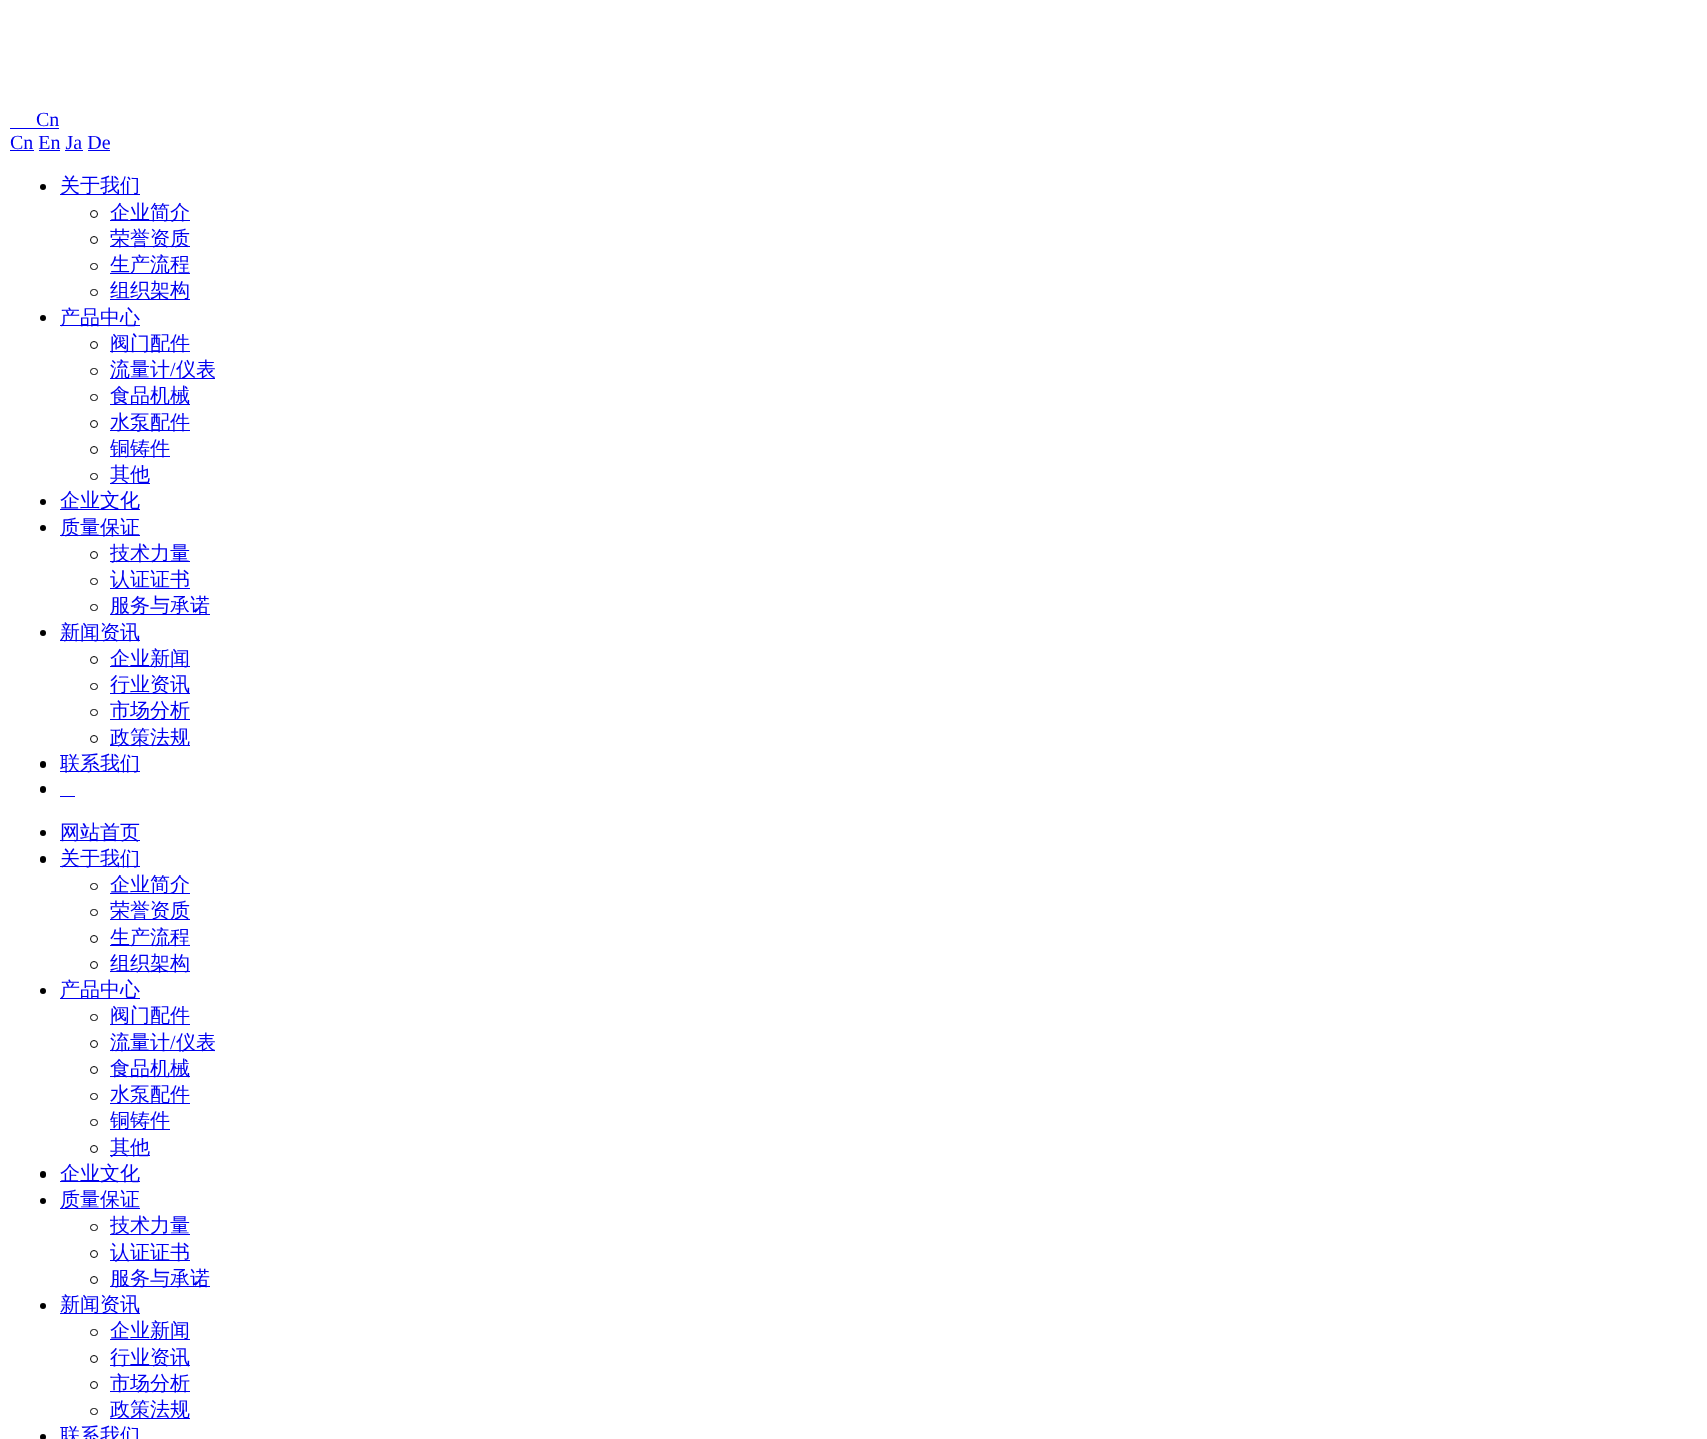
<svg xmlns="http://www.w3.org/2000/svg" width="1707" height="1439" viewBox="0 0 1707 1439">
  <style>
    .t1 { font: 20px Liberation Serif; fill: #00e; }
    .t2 { font: 500 20px WenQuanYi Zen Hei; fill: #00e; }
  </style>
  <rect width="100%" height="100%" fill="#fff"/>
  <text x="36" y="126" class="t1">Cn</text>
  <rect x="10" y="128" width="49" height="1" fill="#00e"/>
  <text x="10" y="149" class="t1">Cn En Ja De</text>
  <rect x="10" y="150" width="24" height="1" fill="#00e"/>
  <rect x="39" y="150" width="21" height="1" fill="#00e"/>
  <rect x="65" y="150" width="18" height="1" fill="#00e"/>
  <rect x="88" y="150" width="22" height="1" fill="#00e"/>
  <circle cx="43" cy="187" r="3" fill="#000"/>
  <rect x="60" y="194" width="80" height="1" fill="#00e"/>
  <text x="60" y="192" class="t2">关于我们</text>
  <circle cx="94" cy="214" r="3.5" fill="none" stroke="#000"/>
  <rect x="110" y="220" width="80" height="1" fill="#00e"/>
  <text x="110" y="219" class="t2">企业简介</text>
  <circle cx="94" cy="240" r="3.5" fill="none" stroke="#000"/>
  <rect x="110" y="246" width="80" height="1" fill="#00e"/>
  <text x="110" y="245" class="t2">荣誉资质</text>
  <rect x="90.5" y="263.5" width="7" height="6" rx="3" fill="none" stroke="#000"/>
  <rect x="110" y="273" width="80" height="1" fill="#00e"/>
  <text x="110" y="271" class="t2">生产流程</text>
  <rect x="90.5" y="289.5" width="7" height="6" rx="3" fill="none" stroke="#000"/>
  <rect x="110" y="299" width="80" height="1" fill="#00e"/>
  <text x="110" y="297" class="t2">组织架构</text>
  <circle cx="43" cy="318" r="3" fill="#000"/>
  <rect x="60" y="325" width="80" height="1" fill="#00e"/>
  <text x="60" y="324" class="t2">产品中心</text>
  <circle cx="94" cy="345" r="3.5" fill="none" stroke="#000"/>
  <rect x="110" y="351" width="80" height="1" fill="#00e"/>
  <text x="110" y="350" class="t2">阀门配件</text>
  <rect x="90.5" y="368.5" width="7" height="6" rx="3" fill="none" stroke="#000"/>
  <rect x="110" y="378" width="105" height="1" fill="#00e"/>
  <text x="110" y="376" class="t2">流量计</text>
  <text x="170" y="376" class="t1">/</text>
  <text x="176" y="376" class="t2">仪表</text>
  <rect x="90.5" y="394.5" width="7" height="6" rx="3" fill="none" stroke="#000"/>
  <rect x="110" y="404" width="80" height="1" fill="#00e"/>
  <text x="110" y="402" class="t2">食品机械</text>
  <circle cx="94" cy="424" r="3.5" fill="none" stroke="#000"/>
  <rect x="110" y="430" width="80" height="1" fill="#00e"/>
  <text x="110" y="429" class="t2">水泵配件</text>
  <circle cx="94" cy="450" r="3.5" fill="none" stroke="#000"/>
  <rect x="110" y="456" width="60" height="1" fill="#00e"/>
  <text x="110" y="455" class="t2">铜铸件</text>
  <rect x="90.5" y="473.5" width="7" height="6" rx="3" fill="none" stroke="#000"/>
  <rect x="110" y="483" width="40" height="1" fill="#00e"/>
  <text x="110" y="481" class="t2">其他</text>
  <circle cx="43" cy="502" r="3" fill="#000"/>
  <rect x="60" y="509" width="80" height="1" fill="#00e"/>
  <text x="60" y="507" class="t2">企业文化</text>
  <circle cx="43" cy="528" r="3" fill="#000"/>
  <rect x="60" y="535" width="80" height="1" fill="#00e"/>
  <text x="60" y="534" class="t2">质量保证</text>
  <circle cx="94" cy="555" r="3.5" fill="none" stroke="#000"/>
  <rect x="110" y="561" width="80" height="1" fill="#00e"/>
  <text x="110" y="560" class="t2">技术力量</text>
  <rect x="90.5" y="578.5" width="7" height="6" rx="3" fill="none" stroke="#000"/>
  <rect x="110" y="588" width="80" height="1" fill="#00e"/>
  <text x="110" y="586" class="t2">认证证书</text>
  <rect x="90.5" y="604.5" width="7" height="6" rx="3" fill="none" stroke="#000"/>
  <rect x="110" y="614" width="100" height="1" fill="#00e"/>
  <text x="110" y="612" class="t2">服务与承诺</text>
  <circle cx="43" cy="633" r="3" fill="#000"/>
  <rect x="60" y="640" width="80" height="1" fill="#00e"/>
  <text x="60" y="639" class="t2">新闻资讯</text>
  <circle cx="94" cy="660" r="3.5" fill="none" stroke="#000"/>
  <rect x="110" y="666" width="80" height="1" fill="#00e"/>
  <text x="110" y="665" class="t2">企业新闻</text>
  <rect x="90.5" y="683.5" width="7" height="6" rx="3" fill="none" stroke="#000"/>
  <rect x="110" y="693" width="80" height="1" fill="#00e"/>
  <text x="110" y="691" class="t2">行业资讯</text>
  <rect x="90.5" y="709.5" width="7" height="6" rx="3" fill="none" stroke="#000"/>
  <rect x="110" y="719" width="80" height="1" fill="#00e"/>
  <text x="110" y="717" class="t2">市场分析</text>
  <circle cx="94" cy="739" r="3.5" fill="none" stroke="#000"/>
  <rect x="110" y="745" width="80" height="1" fill="#00e"/>
  <text x="110" y="744" class="t2">政策法规</text>
  <rect x="40" y="761" width="6" height="7" rx="3" fill="#000"/>
  <rect x="60" y="771" width="80" height="1" fill="#00e"/>
  <text x="60" y="770" class="t2">联系我们</text>
  <rect x="40" y="786" width="6" height="7" rx="3" fill="#000"/>
  <rect x="60" y="796" width="15" height="1" fill="#00e"/>
  <circle cx="43" cy="833" r="3" fill="#000"/>
  <rect x="60" y="840" width="80" height="1" fill="#00e"/>
  <text x="60" y="839" class="t2">网站首页</text>
  <rect x="40" y="856" width="6" height="7" rx="3" fill="#000"/>
  <rect x="60" y="866" width="80" height="1" fill="#00e"/>
  <text x="60" y="865" class="t2">关于我们</text>
  <rect x="90.5" y="883.5" width="7" height="6" rx="3" fill="none" stroke="#000"/>
  <rect x="110" y="893" width="80" height="1" fill="#00e"/>
  <text x="110" y="891" class="t2">企业简介</text>
  <rect x="90.5" y="909.5" width="7" height="6" rx="3" fill="none" stroke="#000"/>
  <rect x="110" y="919" width="80" height="1" fill="#00e"/>
  <text x="110" y="917" class="t2">荣誉资质</text>
  <circle cx="94" cy="939" r="3.5" fill="none" stroke="#000"/>
  <rect x="110" y="945" width="80" height="1" fill="#00e"/>
  <text x="110" y="944" class="t2">生产流程</text>
  <circle cx="94" cy="965" r="3.5" fill="none" stroke="#000"/>
  <rect x="110" y="971" width="80" height="1" fill="#00e"/>
  <text x="110" y="970" class="t2">组织架构</text>
  <circle cx="43" cy="991" r="3" fill="#000"/>
  <rect x="60" y="998" width="80" height="1" fill="#00e"/>
  <text x="60" y="996" class="t2">产品中心</text>
  <rect x="90.5" y="1014.5" width="7" height="6" rx="3" fill="none" stroke="#000"/>
  <rect x="110" y="1024" width="80" height="1" fill="#00e"/>
  <text x="110" y="1022" class="t2">阀门配件</text>
  <circle cx="94" cy="1044" r="3.5" fill="none" stroke="#000"/>
  <rect x="110" y="1050" width="105" height="1" fill="#00e"/>
  <text x="110" y="1049" class="t2">流量计</text>
  <text x="170" y="1049" class="t1">/</text>
  <text x="176" y="1049" class="t2">仪表</text>
  <circle cx="94" cy="1070" r="3.5" fill="none" stroke="#000"/>
  <rect x="110" y="1076" width="80" height="1" fill="#00e"/>
  <text x="110" y="1075" class="t2">食品机械</text>
  <rect x="90.5" y="1093.5" width="7" height="6" rx="3" fill="none" stroke="#000"/>
  <rect x="110" y="1103" width="80" height="1" fill="#00e"/>
  <text x="110" y="1101" class="t2">水泵配件</text>
  <rect x="90.5" y="1119.5" width="7" height="6" rx="3" fill="none" stroke="#000"/>
  <rect x="110" y="1129" width="60" height="1" fill="#00e"/>
  <text x="110" y="1127" class="t2">铜铸件</text>
  <circle cx="94" cy="1149" r="3.5" fill="none" stroke="#000"/>
  <rect x="110" y="1155" width="40" height="1" fill="#00e"/>
  <text x="110" y="1154" class="t2">其他</text>
  <rect x="40" y="1171" width="6" height="7" rx="3" fill="#000"/>
  <rect x="60" y="1181" width="80" height="1" fill="#00e"/>
  <text x="60" y="1180" class="t2">企业文化</text>
  <circle cx="43" cy="1201" r="3" fill="#000"/>
  <rect x="60" y="1208" width="80" height="1" fill="#00e"/>
  <text x="60" y="1206" class="t2">质量保证</text>
  <rect x="90.5" y="1224.5" width="7" height="6" rx="3" fill="none" stroke="#000"/>
  <rect x="110" y="1234" width="80" height="1" fill="#00e"/>
  <text x="110" y="1232" class="t2">技术力量</text>
  <circle cx="94" cy="1254" r="3.5" fill="none" stroke="#000"/>
  <rect x="110" y="1260" width="80" height="1" fill="#00e"/>
  <text x="110" y="1259" class="t2">认证证书</text>
  <circle cx="94" cy="1280" r="3.5" fill="none" stroke="#000"/>
  <rect x="110" y="1286" width="100" height="1" fill="#00e"/>
  <text x="110" y="1285" class="t2">服务与承诺</text>
  <circle cx="43" cy="1306" r="3" fill="#000"/>
  <rect x="60" y="1313" width="80" height="1" fill="#00e"/>
  <text x="60" y="1311" class="t2">新闻资讯</text>
  <rect x="90.5" y="1329.5" width="7" height="6" rx="3" fill="none" stroke="#000"/>
  <rect x="110" y="1339" width="80" height="1" fill="#00e"/>
  <text x="110" y="1337" class="t2">企业新闻</text>
  <circle cx="94" cy="1359" r="3.5" fill="none" stroke="#000"/>
  <rect x="110" y="1365" width="80" height="1" fill="#00e"/>
  <text x="110" y="1364" class="t2">行业资讯</text>
  <circle cx="94" cy="1385" r="3.5" fill="none" stroke="#000"/>
  <rect x="110" y="1391" width="80" height="1" fill="#00e"/>
  <text x="110" y="1390" class="t2">市场分析</text>
  <rect x="90.5" y="1408.5" width="7" height="6" rx="3" fill="none" stroke="#000"/>
  <rect x="110" y="1418" width="80" height="1" fill="#00e"/>
  <text x="110" y="1416" class="t2">政策法规</text>
  <circle cx="43" cy="1437" r="3" fill="#000"/>
  <text x="60" y="1442" class="t2">联系我们</text>
</svg>
